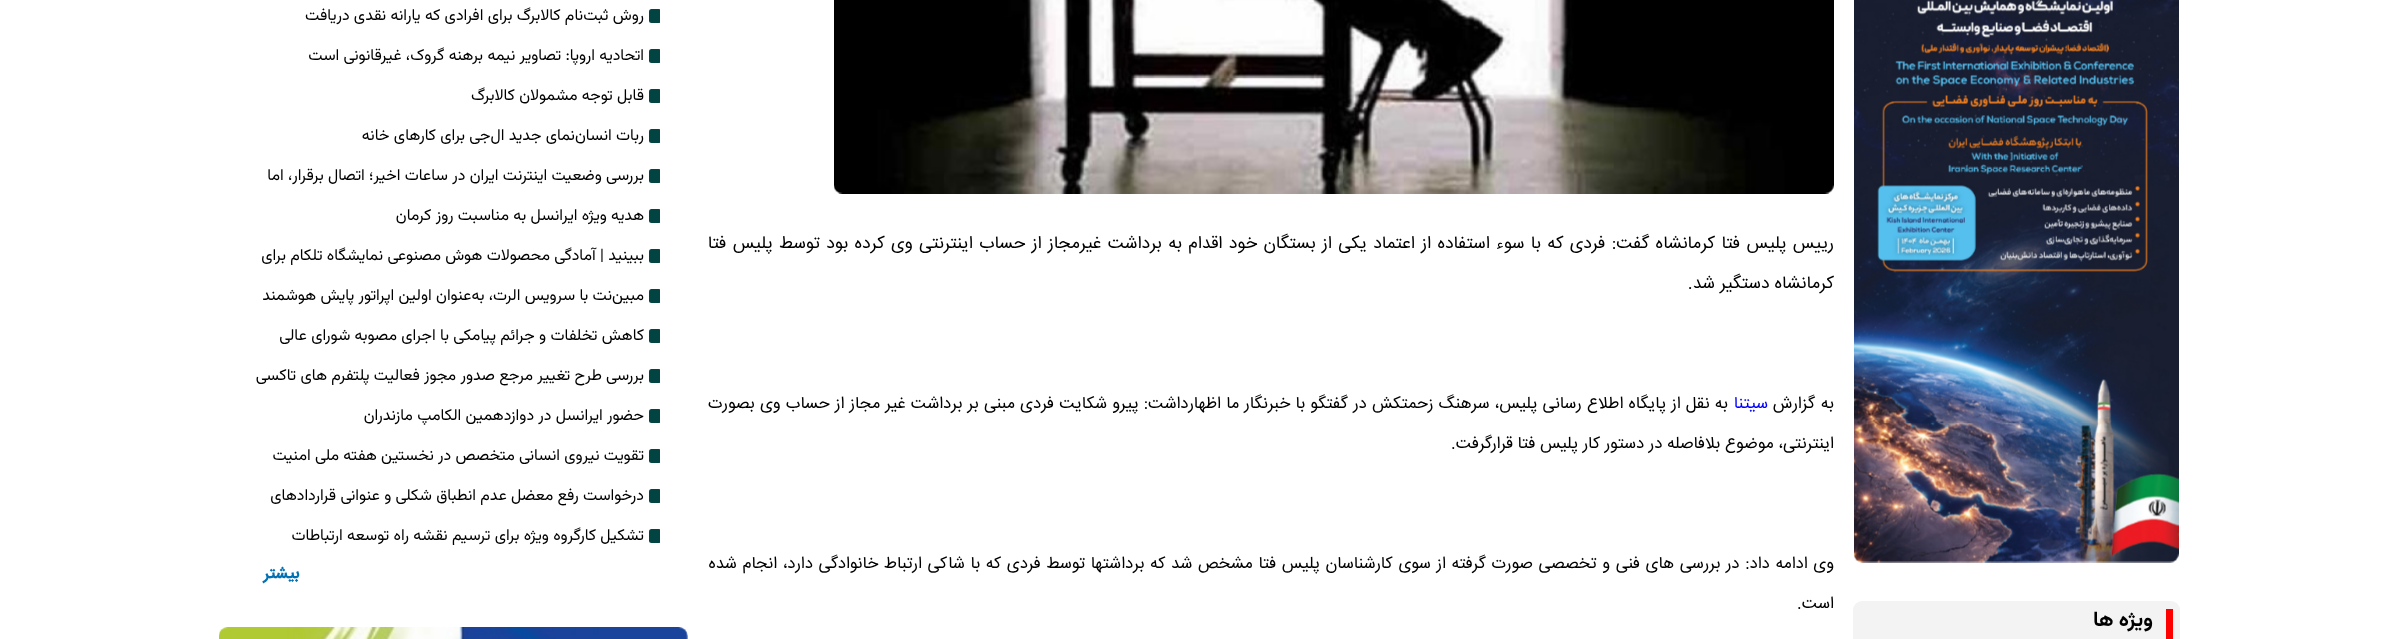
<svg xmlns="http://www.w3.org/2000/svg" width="2396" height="639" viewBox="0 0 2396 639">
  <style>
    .t1 { font: 17.5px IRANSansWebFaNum; direction: rtl; fill: #000; }
    .t2 { font: 16.67px IRANSansWebFaNum; direction: rtl; fill: #000; }
    .t3 { font: 16.67px IRANSansWebFaNum; direction: rtl; fill: #00f; }
    .t4 { font: 16px Vazirmatn; direction: rtl; fill: #000; }
    .t5 { font: bold 16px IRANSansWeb; direction: rtl; fill: #0071b3; }
    .t6 { font: bold 21px Vazirmatn; direction: rtl; fill: #000; }
  </style>
  <defs>
    <clipPath id="clip1"><rect x="246" y="0" width="414" height="35"/></clipPath>
    <clipPath id="clip2"><rect x="246" y="35" width="414" height="40"/></clipPath>
    <clipPath id="clip3"><rect x="246" y="75" width="414" height="40"/></clipPath>
    <clipPath id="clip4"><rect x="246" y="115" width="414" height="40"/></clipPath>
    <clipPath id="clip5"><rect x="246" y="155" width="414" height="40"/></clipPath>
    <clipPath id="clip6"><rect x="246" y="195" width="414" height="40"/></clipPath>
    <clipPath id="clip7"><rect x="246" y="235" width="414" height="40"/></clipPath>
    <clipPath id="clip8"><rect x="246" y="275" width="414" height="40"/></clipPath>
    <clipPath id="clip9"><rect x="246" y="315" width="414" height="40"/></clipPath>
    <clipPath id="clip10"><rect x="246" y="355" width="414" height="40"/></clipPath>
    <clipPath id="clip11"><rect x="246" y="395" width="414" height="40"/></clipPath>
    <clipPath id="clip12"><rect x="246" y="435" width="414" height="40"/></clipPath>
    <clipPath id="clip13"><rect x="246" y="475" width="414" height="40"/></clipPath>
    <clipPath id="clip14"><rect x="246" y="515" width="414" height="40"/></clipPath>
  </defs>
  <rect width="100%" height="100%" fill="#fff"/>
  <image x="834" y="0" width="1000" height="194" href="images/1.png"/>
  <text x="1834" y="248" word-spacing="1.4" class="t1">رییس پلیس فتا کرمانشاه گفت: فردی که با سوء استفاده از اعتماد یکی از بستگان خود اقدام به برداشت غیرمجاز از حساب اینترنتی وی کرده بود توسط پلیس فتا</text>
  <text x="1834" y="288" class="t1">کرمانشاه دستگیر شد.</text>
  <text x="1834" y="408" word-spacing="1" class="t2">به گزارش</text>
  <text x="1768" y="408" class="t3">سیتنا</text>
  <text x="1728" y="408" word-spacing="0.5" class="t2">به نقل از پایگاه اطلاع رسانی پلیس، سرهنگ زحمتکش در گفتگو با خبرنگار ما اظهارداشت: پیرو شکایت فردی مبنی بر برداشت غیر مجاز از حساب وی بصورت</text>
  <text x="1834" y="448" class="t2">اینترنتی، موضوع بلافاصله در دستور کار پلیس فتا قرارگرفت.</text>
  <text x="1834" y="568" word-spacing="0.95" class="t2">وی ادامه داد: در بررسی های فنی و تخصصی صورت گرفته از سوی کارشناسان پلیس فتا مشخص شد که برداشتها توسط فردی که با شاکی ارتباط خانوادگی دارد، انجام شده</text>
  <text x="1834" y="608" class="t2">است.</text>
  <g clip-path="url(#clip1)">
    <rect x="649" y="9" width="12" height="14" rx="2.5" fill="#024442"/>
  </g>
  <text x="644" y="20" class="t4">روش ثبت‌نام کالابرگ برای افرادی که یارانه نقدی دریافت</text>
  <g clip-path="url(#clip2)">
    <rect x="649" y="49" width="12" height="14" rx="2.5" fill="#024442"/>
  </g>
  <text x="644" y="60" class="t4">اتحادیه اروپا: تصاویر نیمه برهنه گروک، غیرقانونی است</text>
  <g clip-path="url(#clip3)">
    <rect x="649" y="89" width="12" height="14" rx="2.5" fill="#024442"/>
  </g>
  <text x="644" y="100" class="t4">قابل توجه مشمولان کالابرگ</text>
  <g clip-path="url(#clip4)">
    <rect x="649" y="129" width="12" height="14" rx="2.5" fill="#024442"/>
  </g>
  <text x="644" y="140" class="t4">ربات انسان‌نمای جدید ال‌جی برای کارهای خانه</text>
  <g clip-path="url(#clip5)">
    <rect x="649" y="169" width="12" height="14" rx="2.5" fill="#024442"/>
  </g>
  <text x="644" y="180" class="t4">بررسی وضعیت اینترنت ایران در ساعات اخیر؛ اتصال برقرار، اما</text>
  <g clip-path="url(#clip6)">
    <rect x="649" y="209" width="12" height="14" rx="2.5" fill="#024442"/>
  </g>
  <text x="644" y="220" class="t4">هدیه ویژه ایرانسل به مناسبت روز کرمان</text>
  <g clip-path="url(#clip7)">
    <rect x="649" y="249" width="12" height="14" rx="2.5" fill="#024442"/>
  </g>
  <text x="644" y="260" class="t4">ببینید | آمادگی محصولات هوش مصنوعی نمایشگاه تلکام برای</text>
  <g clip-path="url(#clip8)">
    <rect x="649" y="289" width="12" height="14" rx="2.5" fill="#024442"/>
  </g>
  <text x="644" y="300" class="t4">مبین‌نت با سرویس الرت، به‌عنوان اولین اپراتور پایش هوشمند</text>
  <g clip-path="url(#clip9)">
    <rect x="649" y="329" width="12" height="14" rx="2.5" fill="#024442"/>
  </g>
  <text x="644" y="340" class="t4">کاهش تخلفات و جرائم پیامکی با اجرای مصوبه شورای عالی</text>
  <g clip-path="url(#clip10)">
    <rect x="649" y="369" width="12" height="14" rx="2.5" fill="#024442"/>
  </g>
  <text x="644" y="380" class="t4">بررسی طرح تغییر مرجع صدور مجوز فعالیت پلتفرم‌ های تاکسی</text>
  <g clip-path="url(#clip11)">
    <rect x="649" y="409" width="12" height="14" rx="2.5" fill="#024442"/>
  </g>
  <text x="644" y="420" class="t4">حضور ایرانسل در دوازدهمین الکامپ مازندران</text>
  <g clip-path="url(#clip12)">
    <rect x="649" y="449" width="12" height="14" rx="2.5" fill="#024442"/>
  </g>
  <text x="644" y="460" class="t4">تقویت نیروی انسانی متخصص در نخستین هفته ملی امنیت</text>
  <g clip-path="url(#clip13)">
    <rect x="649" y="489" width="12" height="14" rx="2.5" fill="#024442"/>
  </g>
  <text x="644" y="500" class="t4">درخواست رفع معضل عدم انطباق شکلی و عنوانی قراردادهای</text>
  <g clip-path="url(#clip14)">
    <rect x="649" y="529" width="12" height="14" rx="2.5" fill="#024442"/>
  </g>
  <text x="644" y="540" class="t4">تشکیل کارگروه ویژه برای ترسیم نقشه راه توسعه ارتباطات</text>
  <text x="299" y="578" class="t5">بیشتر</text>
  <image x="219" y="627" width="469" height="12" href="images/2.png"/>
  <image x="1854" y="0" width="325" height="563" href="images/3.png"/>
  <rect x="1853" y="601" width="327" height="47" rx="9" fill="#f3f3f3"/>
  <rect x="2166" y="609" width="7" height="30" fill="#f00"/>
  <text x="2153" y="626" class="t6">ویژه ها</text>
</svg>
